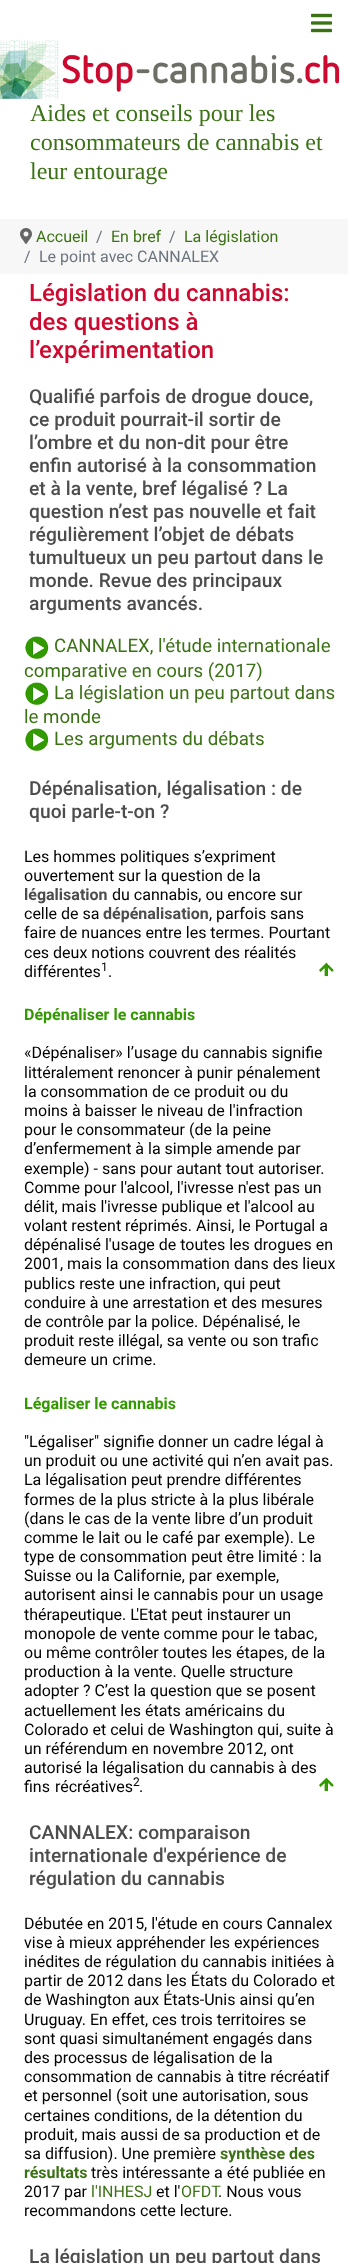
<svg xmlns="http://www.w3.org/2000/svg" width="348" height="2263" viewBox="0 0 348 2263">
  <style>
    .t1 { font: 24px Liberation Serif; fill: #3c7216; }
    .t2 { font: 16px Roboto; fill: #3c7216; }
    .t3 { font: 16px Roboto; fill: #6c757d; }
    .t4 { font: 500 24px Roboto; fill: #cd0b31; }
    .t5 { font: 500 19.25px Roboto; fill: #4d4d4d; }
    .t6 { font: 18.7px Roboto; fill: #3c7216; }
    .t7 { font: 16px Roboto; fill: #000; }
    .t8 { font: bold 16px Roboto; fill: #4d4d4d; }
    .t9 { font: 12px Roboto; fill: #000; }
    .t10 { font: bold 16px Roboto; fill: #390; }
    .t11 { font: bold 16px Roboto; fill: #3c7216; }
  </style>
  <rect width="100%" height="100%" fill="#fff"/>
  <image x="311" y="13" width="21" height="20" href="images/1.png"/>
  <image x="0" y="40" width="340" height="59" href="images/2.png"/>
  <text x="30" y="121" class="t1">Aides et conseils pour les</text>
  <text x="30" y="150" class="t1">consommateurs de cannabis et</text>
  <text x="30" y="179" class="t1">leur entourage</text>
  <rect x="0" y="219" width="348" height="55" fill="#f7f7f7"/>
  <image x="20" y="228" width="12" height="16" href="images/3.png"/>
  <text x="36" y="242" class="t2">Accueil</text>
  <text x="96" y="242" class="t3">/</text>
  <text x="111" y="242" class="t2">En bref</text>
  <text x="169" y="242" class="t3">/</text>
  <text x="184" y="242" class="t2">La législation</text>
  <text x="24" y="262" class="t3">/</text>
  <text x="39" y="262" class="t3">Le point avec CANNALEX</text>
  <text x="29" y="301" class="t4">Législation du cannabis:</text>
  <text x="29" y="330" class="t4">des questions à</text>
  <text x="29" y="358" class="t4">l’expérimentation</text>
  <text x="29" y="403" class="t5">Qualifié parfois de drogue douce,</text>
  <text x="29" y="426" class="t5">ce produit pourrait-il sortir de</text>
  <text x="29" y="449" class="t5">l’ombre et du non-dit pour être</text>
  <text x="29" y="472" class="t5">enfin autorisé à la consommation</text>
  <text x="29" y="495" class="t5">et à la vente, bref légalisé ? La</text>
  <text x="29" y="518" class="t5">question n’est pas nouvelle et fait</text>
  <text x="29" y="541" class="t5">régulièrement l’objet de débats</text>
  <text x="29" y="564" class="t5">tumultueux un peu partout dans le</text>
  <text x="29" y="587" class="t5">monde. Revue des principaux</text>
  <text x="29" y="610" class="t5">arguments avancés.</text>
  <image x="25" y="636" width="24" height="23" href="images/4.png"/>
  <text x="54" y="652" class="t6">CANNALEX, l'étude internationale</text>
  <text x="24" y="677" class="t6">comparative en cours (2017)</text>
  <image x="25" y="682" width="24" height="23" href="images/4.png"/>
  <text x="54" y="699" class="t6">La législation un peu partout dans</text>
  <text x="24" y="723" class="t6">le monde</text>
  <image x="25" y="728" width="24" height="23" href="images/4.png"/>
  <text x="54" y="745" class="t6">Les arguments du débats</text>
  <text x="29" y="795" class="t5">Dépénalisation, légalisation : de</text>
  <text x="29" y="818" class="t5">quoi parle-t-on ?</text>
  <text x="24" y="862" class="t7">Les hommes politiques s’expriment</text>
  <text x="24" y="881" class="t7">ouvertement sur la question de la</text>
  <text x="24" y="900" class="t8">légalisation</text>
  <text x="112" y="900" class="t7">du cannabis, ou encore sur</text>
  <text x="24" y="919" class="t7">celle de sa</text>
  <text x="103" y="919" class="t8">dépénalisation</text>
  <text x="209" y="919" class="t7">, parfois sans</text>
  <text x="24" y="938" class="t7">faire de nuances entre les termes. Pourtant</text>
  <text x="24" y="958" class="t7">ces deux notions couvrent des réalités</text>
  <text x="24" y="977" class="t7">différentes</text>
  <text x="101" y="971" class="t9">1</text>
  <text x="108" y="977" class="t7">.</text>
  <image x="319" y="962" width="15" height="15" href="images/5.png"/>
  <text x="24" y="1020" class="t10">Dépénaliser le cannabis</text>
  <text x="24" y="1058" class="t7">«Dépénaliser» l’usage du cannabis signifie</text>
  <text x="24" y="1078" class="t7">littéralement renoncer à punir pénalement</text>
  <text x="24" y="1097" class="t7">la consommation de ce produit ou du</text>
  <text x="24" y="1116" class="t7">moins à baisser le niveau de l'infraction</text>
  <text x="24" y="1135" class="t7">pour le consommateur (de la peine</text>
  <text x="24" y="1154" class="t7">d’enfermement à la simple amende par</text>
  <text x="24" y="1174" class="t7">exemple) - sans pour autant tout autoriser.</text>
  <text x="24" y="1193" class="t7">Comme pour l'alcool, l'ivresse n'est pas un</text>
  <text x="24" y="1212" class="t7">délit, mais l'ivresse publique et l'alcool au</text>
  <text x="24" y="1231" class="t7">volant restent réprimés. Ainsi, le Portugal a</text>
  <text x="24" y="1250" class="t7">dépénalisé l'usage de toutes les drogues en</text>
  <text x="24" y="1269" class="t7">2001, mais la consommation dans des lieux</text>
  <text x="24" y="1289" class="t7">publics reste une infraction, qui peut</text>
  <text x="24" y="1308" class="t7">conduire à une arrestation et des mesures</text>
  <text x="24" y="1327" class="t7">de contrôle par la police. Dépénalisé, le</text>
  <text x="24" y="1346" class="t7">produit reste illégal, sa vente ou son trafic</text>
  <text x="24" y="1365" class="t7">demeure un crime.</text>
  <text x="24" y="1409" class="t10">Légaliser le cannabis</text>
  <text x="24" y="1447" class="t7">"Légaliser" signifie donner un cadre légal à</text>
  <text x="24" y="1466" class="t7">un produit ou une activité qui n’en avait pas.</text>
  <text x="24" y="1485" class="t7">La légalisation peut prendre différentes</text>
  <text x="24" y="1505" class="t7">formes de la plus stricte à la plus libérale</text>
  <text x="24" y="1524" class="t7">(dans le cas de la vente libre d’un produit</text>
  <text x="24" y="1543" class="t7">comme le lait ou le café par exemple). Le</text>
  <text x="24" y="1562" class="t7">type de consommation peut être limité : la</text>
  <text x="24" y="1581" class="t7">Suisse ou la Californie, par exemple,</text>
  <text x="24" y="1600" class="t7">autorisent ainsi le cannabis pour un usage</text>
  <text x="24" y="1620" class="t7">thérapeutique. L'Etat peut instaurer un</text>
  <text x="24" y="1639" class="t7">monopole de vente comme pour le tabac,</text>
  <text x="24" y="1658" class="t7">ou même contrôler toutes les étapes, de la</text>
  <text x="24" y="1677" class="t7">production à la vente. Quelle structure</text>
  <text x="24" y="1696" class="t7">adopter ? C’est la question que se posent</text>
  <text x="24" y="1716" class="t7">actuellement les états américains du</text>
  <text x="24" y="1735" class="t7">Colorado et celui de Washington qui, suite à</text>
  <text x="24" y="1754" class="t7">un référendum en novembre 2012, ont</text>
  <text x="24" y="1773" class="t7">autorisé la légalisation du cannabis à des</text>
  <text x="24" y="1792" word-spacing="1" class="t7">fins récréatives</text>
  <text x="133" y="1786" class="t9">2</text>
  <text x="139" y="1792" class="t7">.</text>
  <image x="319" y="1777" width="15" height="15" href="images/5.png"/>
  <text x="29" y="1839" class="t5">CANNALEX: comparaison</text>
  <text x="29" y="1862" class="t5">internationale d'expérience de</text>
  <text x="29" y="1885" class="t5">régulation du cannabis</text>
  <text x="24" y="1929" class="t7">Débutée en 2015, l'étude en cours Cannalex</text>
  <text x="24" y="1948" class="t7">vise à mieux appréhender les expériences</text>
  <text x="24" y="1967" class="t7">inédites de régulation du cannabis initiées à</text>
  <text x="24" y="1986" class="t7">partir de 2012 dans les États du Colorado et</text>
  <text x="24" y="2005" class="t7">de Washington aux États-Unis ainsi qu’en</text>
  <text x="24" y="2025" class="t7">Uruguay. En effet, ces trois territoires se</text>
  <text x="24" y="2044" class="t7">sont quasi simultanément engagés dans</text>
  <text x="24" y="2063" class="t7">des processus de légalisation de la</text>
  <text x="24" y="2082" class="t7">consommation de cannabis à titre récréatif</text>
  <text x="24" y="2101" class="t7">et personnel (soit une autorisation, sous</text>
  <text x="24" y="2121" class="t7">certaines conditions, de la détention du</text>
  <text x="24" y="2140" class="t7">produit, mais aussi de sa production et de</text>
  <text x="24" y="2159" class="t7">sa diffusion). Une première</text>
  <text x="220" y="2159" class="t11">synthèse des</text>
  <text x="24" y="2178" class="t11">résultats</text>
  <text x="91" y="2178" class="t7">très intéressante a été publiée en</text>
  <text x="24" y="2197" class="t7">2017 par</text>
  <text x="91" y="2197" class="t2">l'INHESJ</text>
  <text x="156" y="2197" class="t7">et l'</text>
  <text x="181" y="2197" class="t2">OFDT</text>
  <text x="218" y="2197" class="t7">. Nous vous</text>
  <text x="24" y="2216" class="t7">recommandons cette lecture.</text>
  <text x="29" y="2263" class="t5">La législation un peu partout dans</text>
</svg>
